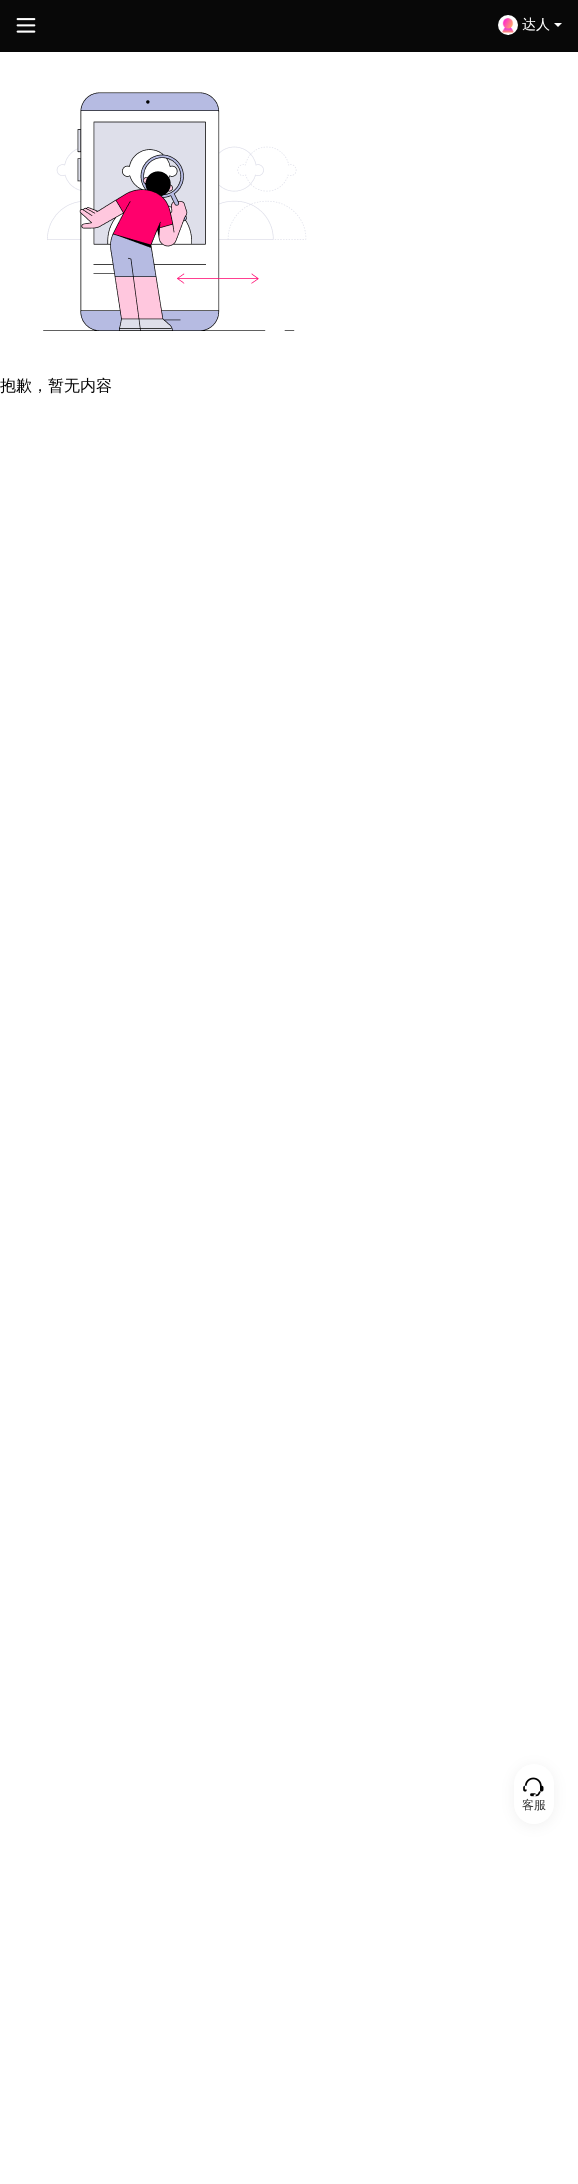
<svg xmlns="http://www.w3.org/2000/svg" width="578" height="2184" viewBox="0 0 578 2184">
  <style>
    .t1 { font: 500 14px WenQuanYi Zen Hei; fill: #fff; }
    .t2 { font: 500 16px WenQuanYi Zen Hei; fill: #000; }
    .t3 { font: 500 12px WenQuanYi Zen Hei; fill: #333; }
  </style>
  <rect width="100%" height="100%" fill="#fff"/>
  <rect x="0" y="0" width="578" height="52" fill="#080808"/>
  <image x="16" y="18" width="20" height="15" href="images/1.png"/>
  <circle cx="508" cy="25" r="10" fill="#fff"/>
  <image x="502" y="18" width="12" height="15" href="images/2.png"/>
  <text x="522" y="29" class="t1">达人</text>
  <path d="M554 23H562L558 27Z" fill="#fff"/>
  <image x="43" y="92" width="264" height="239" href="images/3.png"/>
  <text x="0" y="391" class="t2">抱歉，暂无内容</text>
  <rect x="514" y="1766" width="40" height="60" rx="20" fill="#0000000f" filter="blur(7px)"/>
  <rect x="514" y="1764" width="40" height="60" rx="20" fill="#fff"/>
  <image x="523" y="1777" width="21" height="20" href="images/4.png"/>
  <text x="522" y="1809" class="t3">客服</text>
</svg>
